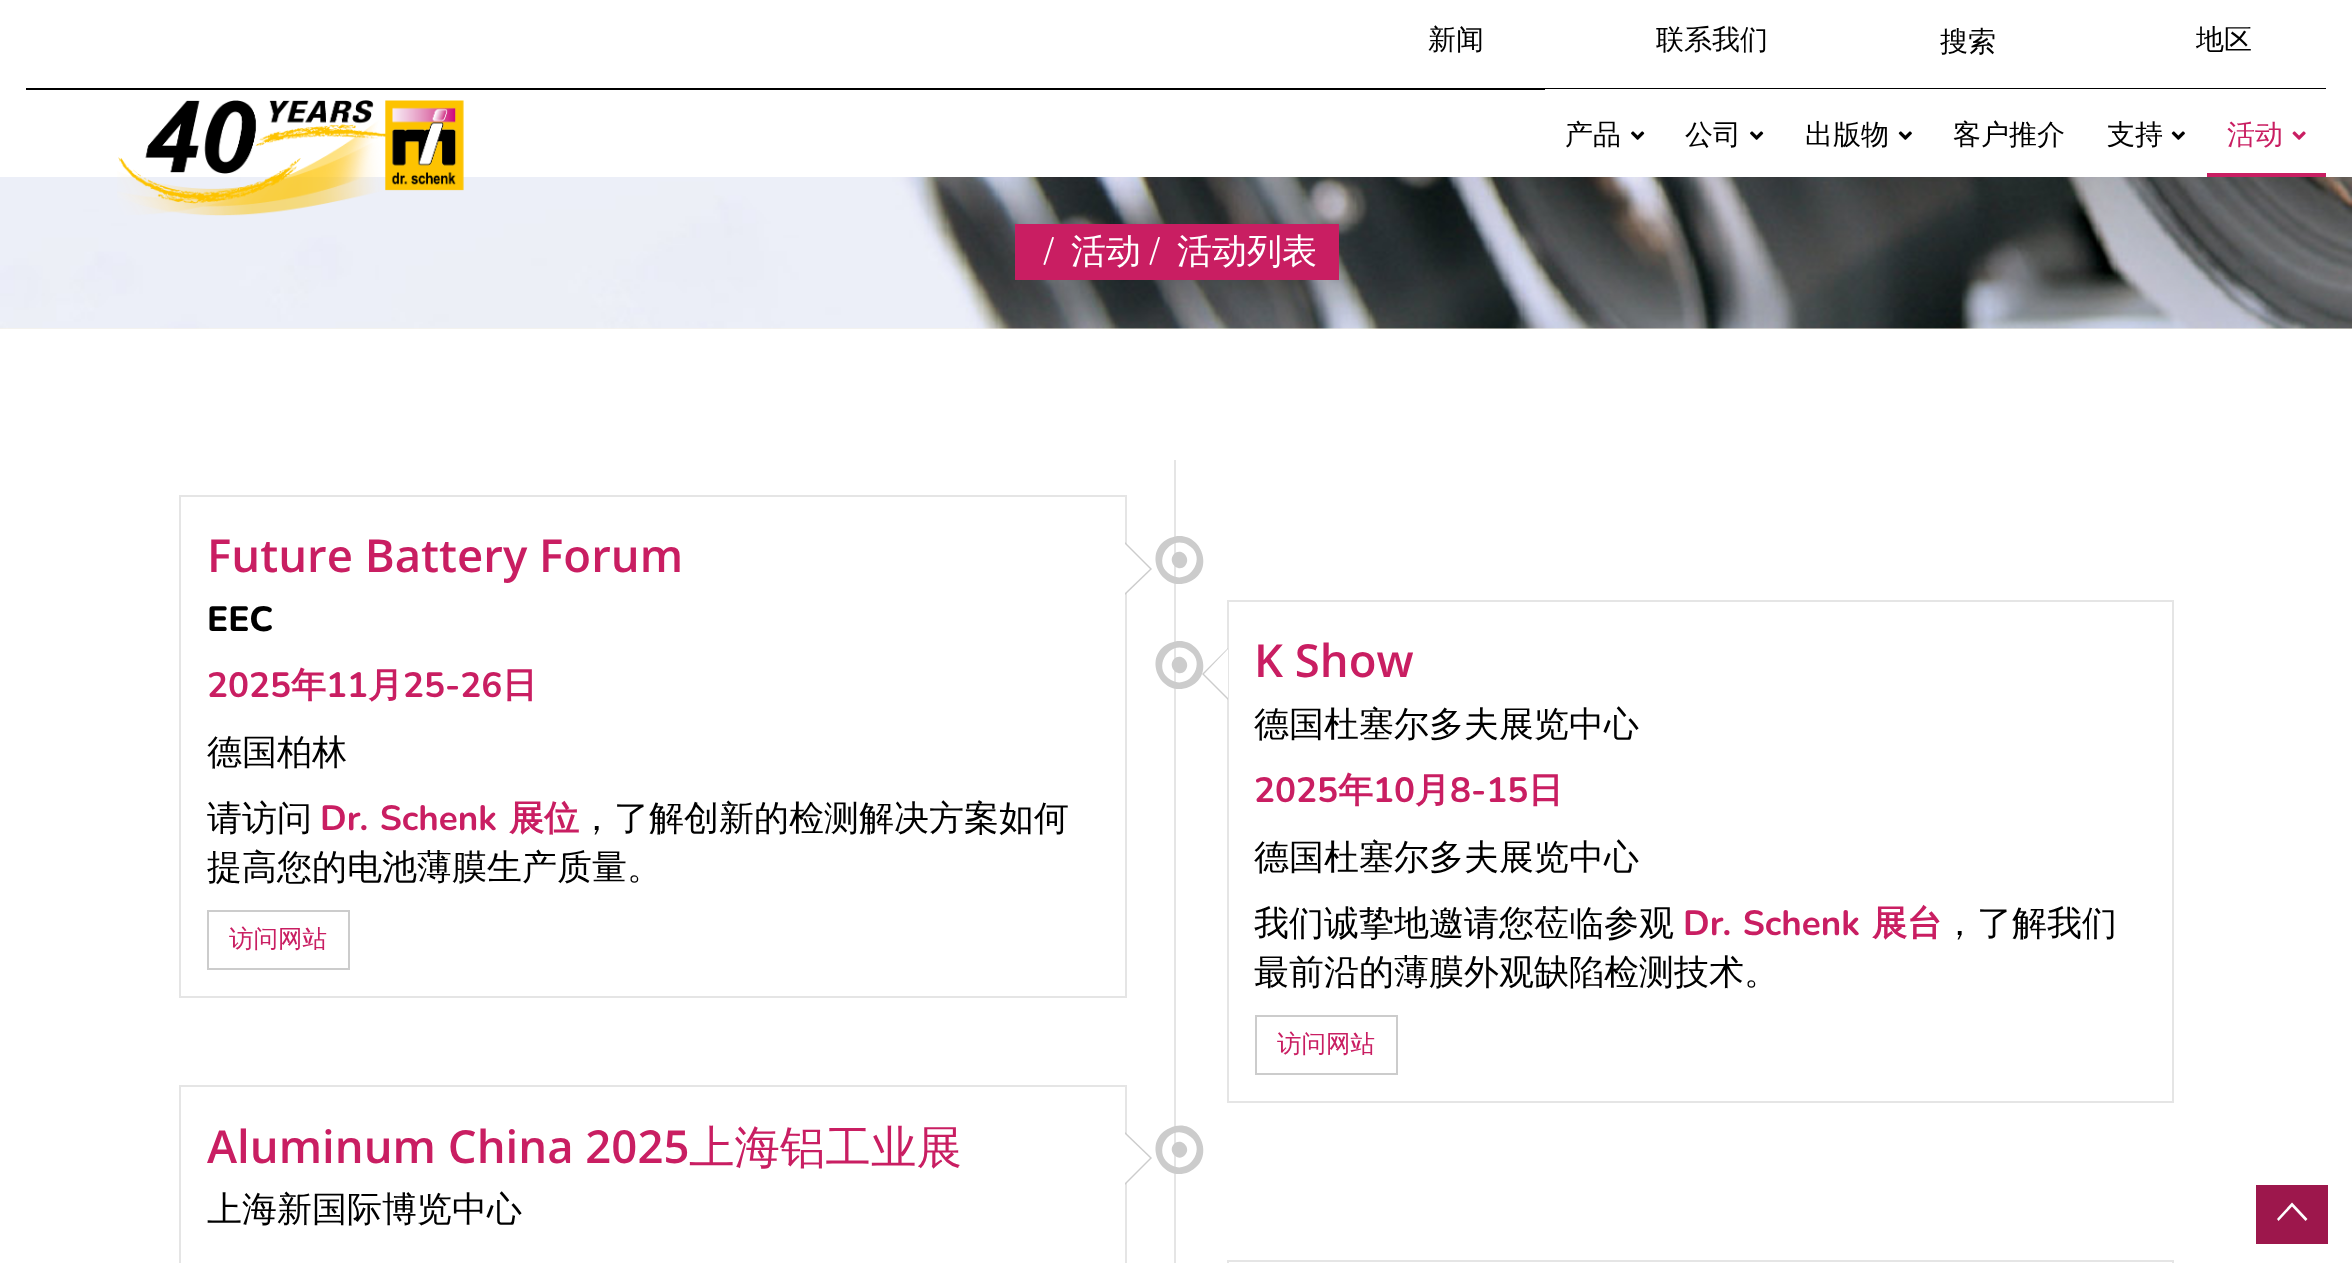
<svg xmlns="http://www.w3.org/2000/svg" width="2352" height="1263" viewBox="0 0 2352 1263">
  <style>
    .t1 { font: 500 28px WenQuanYi Zen Hei; fill: #000; }
    .t2 { font: 500 28px WenQuanYi Zen Hei; fill: #c91e62; }
    .t3 { font: 300 35px Nunito; fill: #fff; }
    .t4 { font: 500 35px WenQuanYi Zen Hei; fill: #fff; }
    .t5 { font: 600 45.5px Open Sans; fill: #c91e62; }
    .t6 { font: 800 35px Nunito; fill: #000; }
    .t7 { font: bold 35px Nunito; fill: #c91e62; }
    .t8 { font: bold 35px WenQuanYi Zen Hei; fill: #c91e62; }
    .t9 { font: 500 35px WenQuanYi Zen Hei; fill: #000; }
    .t10 { font: 500 24.5px WenQuanYi Zen Hei; fill: #c91e62; }
    .t11 { font: 500 45.5px WenQuanYi Zen Hei; fill: #c91e62; }
  </style>
  <rect width="100%" height="100%" fill="#fff"/>
  <text x="1428" y="49" class="t1">新闻</text>
  <text x="1656" y="49" class="t1">联系我们</text>
  <text x="1940" y="51" class="t1">搜索</text>
  <text x="2196" y="49" class="t1">地区</text>
  <rect x="0" y="328" width="2352" height="1" fill="#faf4e6"/>
  <image x="0" y="177" width="2352" height="152" href="images/5.png"/>
  <image x="117" y="100" width="347" height="116" href="images/1.png"/>
  <rect x="26" y="88" width="2300" height="2" fill="#000"/>
  <rect x="1545" y="89" width="781" height="1" fill="#fff"/>
  <text x="1565" y="144" class="t1">产品</text>
  <image x="1631" y="131" width="14" height="9" href="images/2.png"/>
  <text x="1685" y="144" class="t1">公司</text>
  <image x="1750" y="131" width="14" height="9" href="images/2.png"/>
  <text x="1805" y="144" class="t1">出版物</text>
  <image x="1898" y="131" width="14" height="9" href="images/3.png"/>
  <text x="1953" y="144" class="t1">客户推介</text>
  <text x="2107" y="144" class="t1">支持</text>
  <image x="2171" y="131" width="14" height="9" href="images/3.png"/>
  <rect x="2207" y="173" width="119" height="4" fill="#c91e62"/>
  <text x="2227" y="144" class="t2">活动</text>
  <image x="2292" y="131" width="14" height="9" href="images/4.png"/>
  <rect x="1015" y="224" width="324" height="56" fill="#c91e62"/>
  <text x="1044" y="263" class="t3">/</text>
  <text x="1071" y="263" class="t4">活动</text>
  <text x="1150" y="263" class="t3">/</text>
  <text x="1177" y="263" class="t4">活动列表</text>
  <rect x="180" y="496" width="946" height="501" fill="none" stroke="#e5e5e5" stroke-width="2"/>
  <text x="207" y="572" class="t5">Future Battery Forum</text>
  <text x="207" y="631" class="t6">EEC</text>
  <text x="207" y="697" class="t7">2025</text>
  <text x="291" y="697" class="t8">年</text>
  <text x="326" y="697" class="t7">11</text>
  <text x="368" y="697" class="t8">月</text>
  <text x="403" y="697" class="t7">25-26</text>
  <text x="502" y="697" class="t8">日</text>
  <text x="207" y="764" class="t9">德国柏林</text>
  <text x="207" y="830" class="t9">请访问</text>
  <text x="320" y="830" word-spacing="2" class="t7">Dr. Schenk</text>
  <text x="509" y="830" class="t8">展位</text>
  <text x="579" y="830" class="t9">，了解创新的检测解决方案如何</text>
  <text x="207" y="879" class="t9">提高您的电池薄膜生产质量。</text>
  <rect x="208" y="911" width="141" height="58" fill="none" stroke="#ccc" stroke-width="2"/>
  <text x="229" y="947" class="t10">访问网站</text>
  <path d="M1125 595V542L1152 569Z" fill="#ccc"/>
  <path d="M1125 593V544L1150 569Z" fill="#fff"/>
  <rect x="1174" y="460" width="2" height="803" fill="#e5e5e5"/>
  <path d="M1170 538C1199 526 1218 570 1189 582C1160 594 1141 550 1170 538ZM1188 545C1169 534 1151 564 1171 575C1190 586 1208 556 1188 545ZM1174 554C1181 547 1192 558 1185 566C1178 573 1167 562 1174 554Z" fill="#ccc"/>
  <rect x="1228" y="601" width="945" height="501" fill="none" stroke="#e5e5e5" stroke-width="2"/>
  <path d="M1228 648V700L1202 674Z" fill="#ccc"/>
  <path d="M1170 643C1199 631 1218 675 1189 687C1160 699 1141 655 1170 643ZM1188 650C1169 639 1151 669 1171 680C1190 691 1208 661 1188 650ZM1174 659C1181 652 1192 663 1185 671C1178 678 1167 667 1174 659Z" fill="#ccc"/>
  <text x="1254" y="677" class="t5">K Show</text>
  <text x="1254" y="736" class="t9">德国杜塞尔多夫展览中心</text>
  <text x="1254" y="802" class="t7">2025</text>
  <text x="1338" y="802" class="t8">年</text>
  <text x="1373" y="802" class="t7">10</text>
  <text x="1415" y="802" class="t8">月</text>
  <text x="1450" y="802" class="t7">8-15</text>
  <text x="1528" y="802" class="t8">日</text>
  <text x="1254" y="869" class="t9">德国杜塞尔多夫展览中心</text>
  <text x="1254" y="935" class="t9">我们诚挚地邀请您莅临参观</text>
  <text x="1683" y="935" word-spacing="2" class="t7">Dr. Schenk</text>
  <text x="1872" y="935" class="t8">展台</text>
  <text x="1942" y="935" class="t9">，了解我们</text>
  <text x="1254" y="984" class="t9">最前沿的薄膜外观缺陷检测技术。</text>
  <rect x="1256" y="1016" width="141" height="58" fill="none" stroke="#ccc" stroke-width="2"/>
  <text x="1277" y="1052" class="t10">访问网站</text>
  <path d="M1228 649V698L1204 674Z" fill="#fff"/>
  <rect x="180" y="1086" width="946" height="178" fill="none" stroke="#e5e5e5" stroke-width="2"/>
  <text x="207" y="1163" class="t5">Aluminum China 2025</text>
  <text x="689" y="1163" class="t11">上海铝工业展</text>
  <text x="207" y="1221" class="t9">上海新国际博览中心</text>
  <path d="M1125 1185V1132L1152 1158Z" fill="#ccc"/>
  <path d="M1125 1183V1134L1150 1158Z" fill="#fff"/>
  <path d="M1170 1128C1199 1115 1218 1159 1189 1172C1160 1184 1141 1140 1170 1128ZM1188 1135C1169 1123 1151 1153 1171 1165C1190 1176 1208 1146 1188 1135ZM1174 1144C1181 1137 1192 1148 1185 1155C1178 1163 1167 1151 1174 1144Z" fill="#ccc"/>
  <rect x="1228" y="1261" width="945" height="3" fill="none" stroke="#e5e5e5" stroke-width="2"/>
  <rect x="2256" y="1185" width="72" height="59" fill="#9d174c"/>
  <path d="M2305.5 1221L2292 1206.5L2278.5 1221L2277 1219L2292 1202.5L2307.5 1219Z" fill="#fff"/>
</svg>
